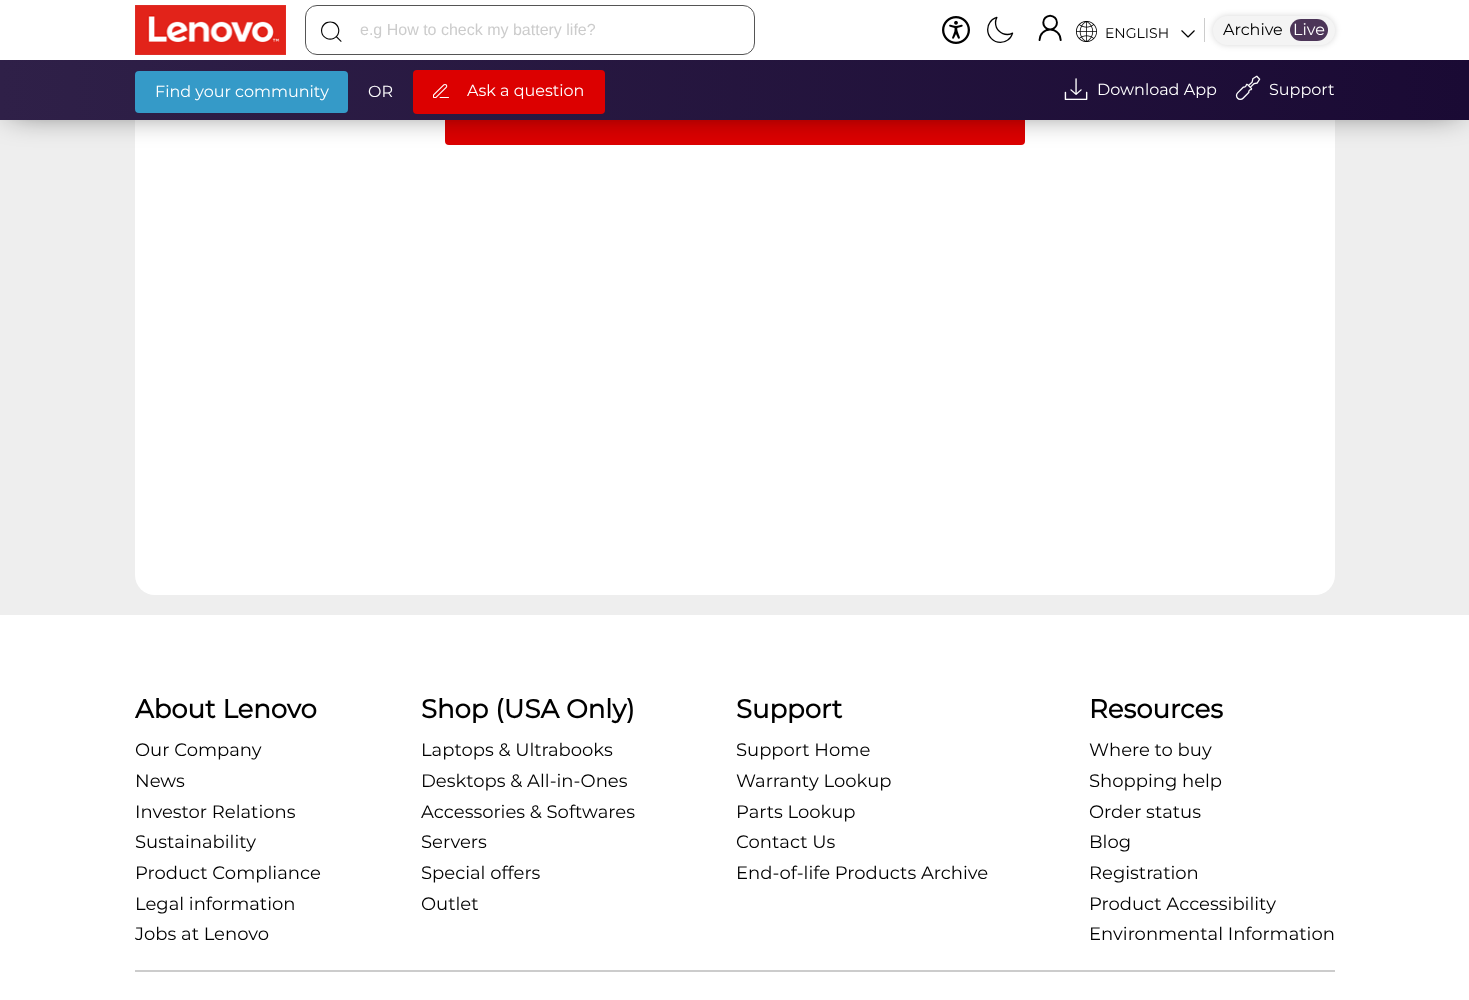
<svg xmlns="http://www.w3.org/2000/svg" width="1469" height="1000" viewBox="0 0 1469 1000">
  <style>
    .t1 { font: 22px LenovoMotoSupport; fill: #000; }
    .t2 { font: 16px Liberation Sans; fill: #ccc; }
    .t3 { font: 28px LenovoMotoSupport; fill: #000; }
    .t4 { font: 14px Montserrat; fill: #000; }
    .t5 { font: 16px Montserrat; fill: #000; }
    .t6 { font: 16px Montserrat; fill: #fff; }
    .t7 { font: 16px LenovoMotoSupport; fill: #fff; }
    .t8 { font: 26px LenovoMotoSupport; fill: #fff; }
    .t9 { font: bold 26px Montserrat; fill: #000; }
    .t10 { font: 18px Montserrat; fill: #000; }
  </style>
  <defs>
    <linearGradient id="g1" gradientUnits="userSpaceOnUse" x1="0" y1="90" x2="1469" y2="90"><stop offset="0" stop-color="#2f2048"/><stop offset="1" stop-color="#1a0a34"/></linearGradient>
  </defs>
  <rect width="100%" height="100%" fill="#eee"/>
  <rect x="135" y="-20" width="1200" height="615" rx="20" fill="#fff"/>
  <rect x="445" y="94" width="580" height="51" rx="4" fill="#dc0000"/>
  <rect x="10" y="10" width="1449" height="100" fill="#000000b3" filter="blur(16px)"/>
  <rect x="0" y="0" width="1469" height="60" fill="#fff"/>
  <image x="135" y="5" width="151" height="50" href="images/1.png"/>
  <rect x="305.5" y="5.5" width="449" height="49" rx="11.5" fill="none" stroke="#555"/>
  <text x="321" y="42" class="t1">󡍑</text>
  <text x="360" y="35" class="t2">e.g How to check my battery life?</text>
  <image x="942" y="16" width="28" height="28" href="images/2.png"/>
  <text x="987" y="43" class="t3">󡌶</text>
  <text x="1037" y="41" class="t3">󡌷</text>
  <image x="1076" y="21" width="21" height="21" href="images/3.png"/>
  <text x="1105" y="38" class="t4">ENGLISH</text>
  <image x="1181" y="30" width="14" height="8" href="images/4.png"/>
  <rect x="1213" y="16" width="122" height="29" rx="14.5" fill="#00000029" filter="blur(3px)"/>
  <rect x="1213" y="16" width="122" height="29" rx="14.5" fill="#f4f4f4"/>
  <rect x="1204" y="18" width="1" height="24" fill="#ccc"/>
  <text x="1223" y="35" class="t5">Archive</text>
  <rect x="1290" y="19" width="38" height="22" rx="11" fill="#4c3558"/>
  <text x="1293" y="35" class="t6">Live</text>
  <rect x="0" y="60" width="1469" height="60" fill="url(#g1)"/>
  <rect x="135" y="71" width="213" height="42" rx="4" fill="#359ac8"/>
  <text x="155" y="97" class="t6">Find your community</text>
  <text x="368" y="97" class="t6">OR</text>
  <rect x="413" y="70" width="192" height="44" rx="4" fill="#dc0000"/>
  <text x="433" y="98" class="t7">󡍓</text>
  <text x="467" y="96" class="t6">Ask a question</text>
  <text x="1063" y="100" class="t8">󡊑</text>
  <text x="1097" y="95" class="t6">Download App</text>
  <text x="1235" y="100" class="t8">󡍒</text>
  <text x="1269" y="95" class="t6">Support</text>
  <rect x="0" y="615" width="1469" height="385" fill="#fff"/>
  <rect x="135" y="970" width="1200" height="2" fill="#ccc"/>
  <text x="135" y="718" class="t9">About Lenovo</text>
  <text x="135" y="756" class="t10">Our Company</text>
  <text x="135" y="787" class="t10">News</text>
  <text x="135" y="818" class="t10">Investor Relations</text>
  <text x="135" y="848" class="t10">Sustainability</text>
  <text x="135" y="879" class="t10">Product Compliance</text>
  <text x="135" y="910" class="t10">Legal information</text>
  <text x="135" y="940" class="t10">Jobs at Lenovo</text>
  <text x="421" y="718" class="t9">Shop (USA Only)</text>
  <text x="421" y="756" class="t10">Laptops &amp; Ultrabooks</text>
  <text x="421" y="787" class="t10">Desktops &amp; All-in-Ones</text>
  <text x="421" y="818" class="t10">Accessories &amp; Softwares</text>
  <text x="421" y="848" class="t10">Servers</text>
  <text x="421" y="879" class="t10">Special offers</text>
  <text x="421" y="910" class="t10">Outlet</text>
  <text x="736" y="718" class="t9">Support</text>
  <text x="736" y="756" class="t10">Support Home</text>
  <text x="736" y="787" class="t10">Warranty Lookup</text>
  <text x="736" y="818" class="t10">Parts Lookup</text>
  <text x="736" y="848" class="t10">Contact Us</text>
  <text x="736" y="879" class="t10">End-of-life Products Archive</text>
  <text x="1089" y="718" class="t9">Resources</text>
  <text x="1089" y="756" class="t10">Where to buy</text>
  <text x="1089" y="787" class="t10">Shopping help</text>
  <text x="1089" y="818" class="t10">Order status</text>
  <text x="1089" y="848" class="t10">Blog</text>
  <text x="1089" y="879" class="t10">Registration</text>
  <text x="1089" y="910" class="t10">Product Accessibility</text>
  <text x="1089" y="940" class="t10">Environmental Information</text>
</svg>
